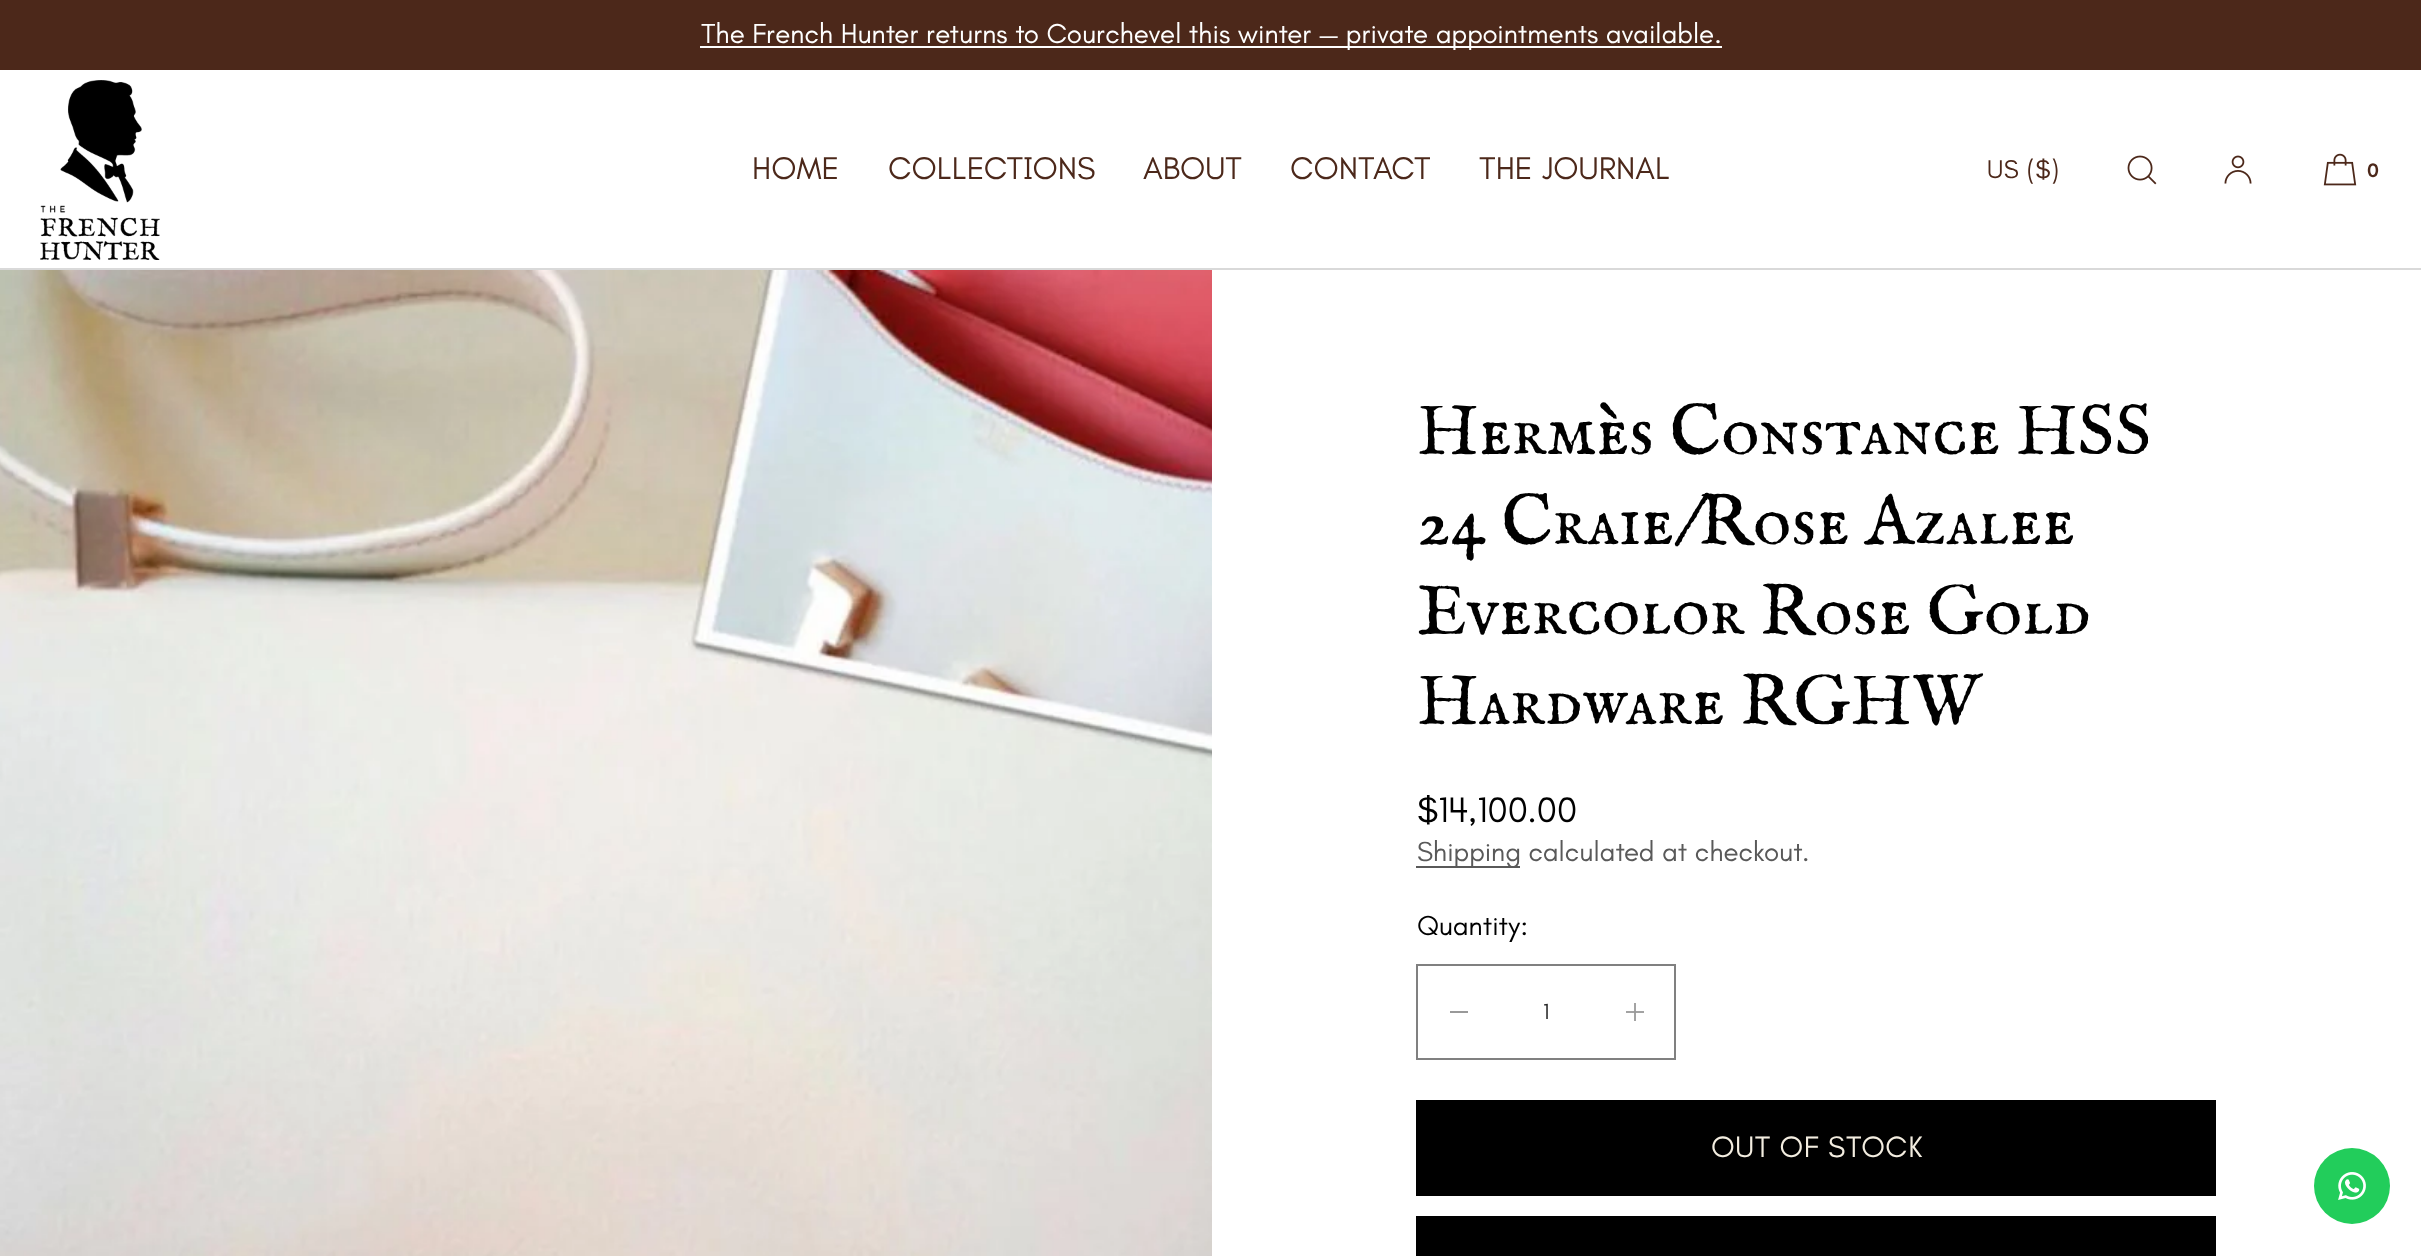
<svg xmlns="http://www.w3.org/2000/svg" width="2421" height="1256" viewBox="0 0 2421 1256">
  <style>
    .t1 { font: 28px Teachers; fill: #fff; }
    .t2 { font: 32px Teachers; fill: #4c281a; }
    .t3 { font: 26px Teachers; letter-spacing: 0.5px; fill: #4c281a; }
    .t4 { font: 600 20px Teachers; letter-spacing: 1px; fill: #4c281a; }
    .t5 { font: 72px IM FELL English SC; fill: #000; }
    .t6 { font: 36px Teachers; fill: #000; }
    .t7 { font: 28px Teachers; fill: #595959; }
    .t8 { font: 28px Teachers; fill: #000; }
    .t9 { font: 22px Teachers; fill: #262626; }
    .t10 { font: 30px Teachers; letter-spacing: 0.6px; fill: #f3ede0; }
  </style>
  <rect width="100%" height="100%" fill="#fff"/>
  <rect x="0" y="0" width="2421" height="70" fill="#4c281a"/>
  <rect x="700" y="46" width="1022" height="2" fill="#fff"/>
  <text x="701" y="43" class="t1">The French Hunter returns to Courchevel this winter — private appointments available.</text>
  <rect x="0" y="268" width="2421" height="2" fill="#d9d9d9"/>
  <image x="40" y="80" width="120" height="180" href="images/1.png"/>
  <text x="752" y="179" class="t2">HOME</text>
  <text x="888" y="179" class="t2">COLLECTIONS</text>
  <text x="1143" y="179" class="t2">ABOUT</text>
  <text x="1290" y="179" class="t2">CONTACT</text>
  <text x="1479" y="179" class="t2">THE JOURNAL</text>
  <text x="1987" y="178" class="t3">US ($)</text>
  <image x="2127" y="155" width="30" height="30" href="images/2.png"/>
  <image x="2224" y="155" width="28" height="29" href="images/3.png"/>
  <image x="2323" y="153" width="34" height="33" href="images/4.png"/>
  <text x="2367" y="177" class="t4">0</text>
  <image x="0" y="270" width="1212" height="986" href="images/5.png"/>
  <text x="1417" y="454" class="t5">Hermès Constance HSS</text>
  <text x="1417" y="544" class="t5">24 Craie/Rose Azalee</text>
  <text x="1417" y="634" class="t5">Evercolor Rose Gold</text>
  <text x="1417" y="724" class="t5">Hardware RGHW</text>
  <text x="1417" y="822" class="t6">$14,100.00</text>
  <rect x="1416" y="866" width="104" height="2" fill="#595959"/>
  <text x="1417" y="861" class="t7">Shipping calculated at checkout.</text>
  <text x="1417" y="935" class="t8">Quantity:</text>
  <rect x="1417" y="965" width="258" height="94" fill="none" stroke="#808080" stroke-width="2"/>
  <rect x="1450" y="1011" width="18" height="2" fill="#999"/>
  <text x="1543" y="1019" class="t9">1</text>
  <image x="1626" y="1003" width="18" height="18" href="images/6.png"/>
  <rect x="1416" y="1100" width="800" height="96" fill="#000"/>
  <text x="1711" y="1157" class="t10">OUT OF STOCK</text>
  <rect x="1416" y="1216" width="800" height="40" fill="#000"/>
  <circle cx="2352" cy="1186" r="38" fill="#22cd5b"/>
  <image x="2338" y="1172" width="28" height="28" href="images/7.png"/>
</svg>
